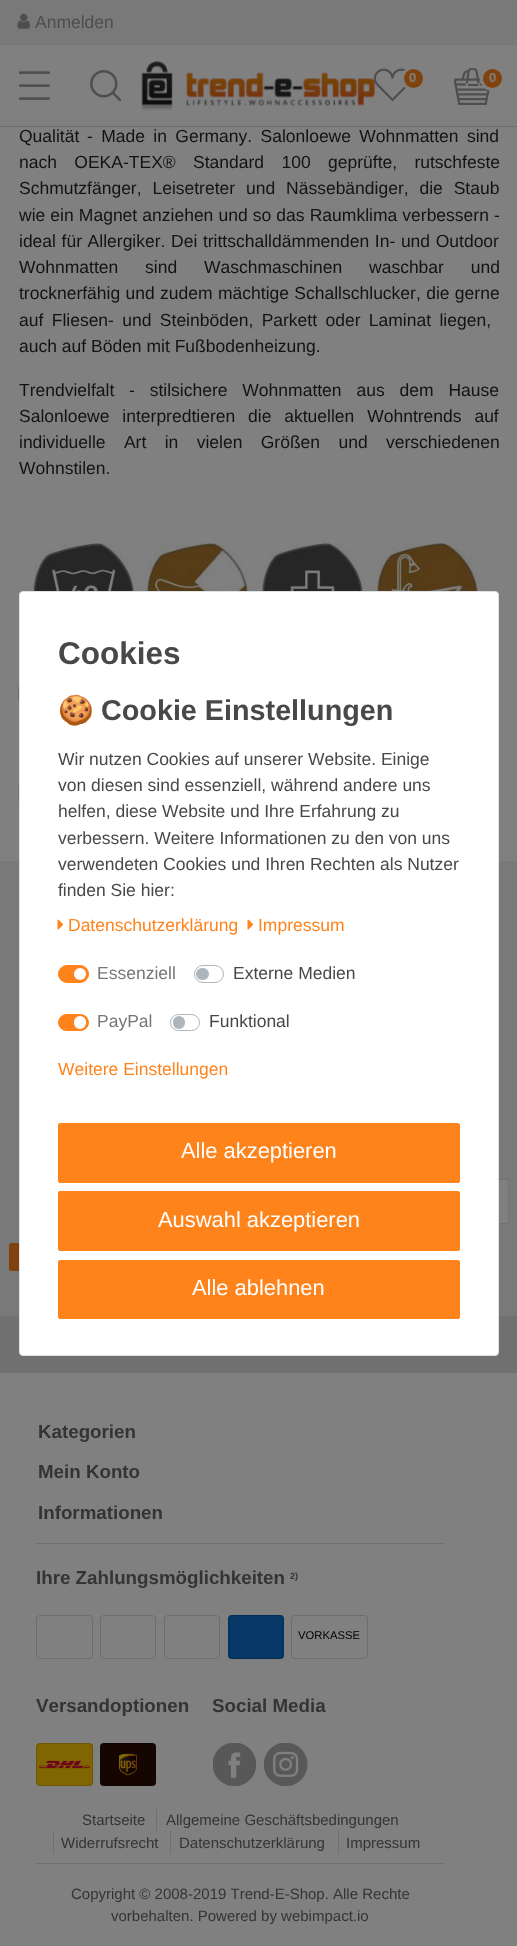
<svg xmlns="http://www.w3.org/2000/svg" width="517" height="1946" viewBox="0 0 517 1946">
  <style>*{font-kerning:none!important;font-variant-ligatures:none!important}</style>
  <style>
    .t1 { font: 17.5px Liberation Sans; fill: #4e4e4e; }
    .t2 { font: bold 13px Liberation Sans; fill: #808080; }
    .t3 { font: 17.5px Liberation Sans; fill: #111315; }
    .t4 { font: bold 31.5px Liberation Sans; fill: #484848; }
    .t5 { font: bold 28.75px Noto Color Emoji; fill: #484848; }
    .t6 { font: bold 28.75px Liberation Sans; fill: #484848; }
    .t7 { font: 17.5px Liberation Sans; fill: #484848; }
    .t8 { font: 17.5px Liberation Sans; fill: #ff831b; }
    .t9 { font: 17.5px Liberation Sans; fill: #767676; }
    .t10 { font: 21.9px Liberation Sans; fill: #fff; }
    .t11 { font: bold 18.75px Liberation Sans; fill: #343434; }
    .t12 { font: bold 9px Liberation Sans; fill: #343434; }
    .t13 { font: 11.25px Liberation Sans; fill: #000; }
    .t14 { font: 15px Liberation Sans; fill: #343434; }
  </style>
  <rect width="100%" height="100%" fill="#808080"/>
  <rect x="0" y="0" width="517" height="45" fill="#797979"/>
  <image x="17" y="13" width="13" height="16" href="images/1.png"/>
  <text x="35" y="28" class="t1">Anmelden</text>
  <rect x="0" y="126" width="517" height="1" fill="#6c6c6c"/>
  <image x="19" y="71" width="31" height="29" href="images/2.png"/>
  <image x="90" y="70" width="31" height="31" href="images/3.png"/>
  <image x="141" y="61" width="234" height="50" href="images/4.png"/>
  <image x="374" y="68" width="32" height="34" href="images/5.png"/>
  <circle cx="413.5" cy="78.5" r="11" fill="#80420e" stroke="#808080" stroke-width="3"/>
  <text x="409" y="82" class="t2">0</text>
  <image x="454" y="68" width="36" height="37" href="images/6.png"/>
  <circle cx="492.5" cy="78.5" r="11" fill="#80420e" stroke="#808080" stroke-width="3"/>
  <text x="489" y="82" class="t2">0</text>
  <text x="19" y="142" class="t3">Qualität</text>
  <text x="87" y="142" word-spacing="3.5" class="t3">- Made in Germany. Salonloewe Wohnmatten sind</text>
  <text x="19" y="168" word-spacing="12.5" class="t3">nach OEKA-TEX® Standard 100 geprüfte, rutschfeste</text>
  <text x="19" y="194" word-spacing="6" class="t3">Schmutzfänger, Leisetreter und Nässebändiger, die Staub</text>
  <text x="19" y="221" word-spacing="0.25" class="t3">wie ein Magnet anziehen und so das Raumklima verbessern -</text>
  <text x="19" y="247" word-spacing="0.75" class="t3">ideal für Allergiker. Dei trittschalldämmenden In- und Outdoor</text>
  <text x="19" y="273" word-spacing="22" class="t3">Wohnmatten sind Waschmaschinen waschbar und</text>
  <text x="19" y="299" word-spacing="0.5" class="t3">trocknerfähig und zudem mächtige Schallschlucker, die gerne</text>
  <text x="19" y="326" word-spacing="3.5" class="t3">auf Fliesen- und Steinböden, Parkett oder Laminat liegen,</text>
  <text x="19" y="352" class="t3">auch auf Böden mit Fußbodenheizung.</text>
  <text x="19" y="396" class="t3">Trendvielfalt</text>
  <text x="129" y="396" word-spacing="10" class="t3">- stilsichere Wohnmatten aus dem Hause</text>
  <text x="19" y="422" word-spacing="8" class="t3">Salonloewe interpredtieren die aktuellen Wohntrends auf</text>
  <text x="19" y="448" word-spacing="13.5" class="t3">individuelle Art in vielen Größen und verschiedenen</text>
  <text x="19" y="474" class="t3">Wohnstilen.</text>
  <image x="33" y="543" width="101" height="48" href="images/7.png"/>
  <image x="147" y="543" width="101" height="48" href="images/8.png"/>
  <image x="262" y="543" width="101" height="48" href="images/9.png"/>
  <image x="377" y="543" width="101" height="48" href="images/10.png"/>
  <image x="18" y="643" width="1" height="101" href="images/11.png"/>
  <image x="18" y="743" width="1" height="101" href="images/12.png"/>
  <rect x="0" y="861" width="517" height="455" fill="#797979"/>
  <rect x="19.5" y="1179.5" width="489" height="44" rx="1.5" fill="none" stroke="#6f7173"/>
  <rect x="20" y="1180" width="488" height="43" rx="0.5" fill="#808080"/>
  <rect x="9.5" y="1243.5" width="489" height="27" rx="1.5" fill="#80420e" stroke="#80420e"/>
  <rect x="0" y="1316" width="517" height="57" fill="#707070"/>
  <rect x="19.5" y="591.5" width="479" height="764" rx="3.5" fill="#fff" stroke="#dee2e6"/>
  <text x="58" y="664" class="t4">Cookies</text>
  <text x="58" y="720" class="t5">🍪</text>
  <text x="101" y="720" class="t6">Cookie Einstellungen</text>
  <text x="58" y="765" class="t7">Wir nutzen Cookies auf unserer Website. Einige</text>
  <text x="58" y="791" class="t7">von diesen sind essenziell, während andere uns</text>
  <text x="58" y="817" class="t7">helfen, diese Website und Ihre Erfahrung zu</text>
  <text x="58" y="844" class="t7">verbessern. Weitere Informationen zu den von uns</text>
  <text x="58" y="870" class="t7">verwendeten Cookies und Ihren Rechten als Nutzer</text>
  <text x="58" y="896" class="t7">finden Sie hier:</text>
  <image x="57" y="919" width="7" height="11" href="images/13.png"/>
  <text x="68" y="931" class="t8">Datenschutzerklärung</text>
  <image x="247" y="919" width="7" height="11" href="images/13.png"/>
  <text x="258" y="931" class="t8">Impressum</text>
  <rect x="58.5" y="965.5" width="30" height="17" rx="8.5" fill="#ff831b" stroke="#ff831b"/>
  <text x="97" y="979" class="t9">Essenziell</text>
  <circle cx="80" cy="974" r="6" fill="#fff"/>
  <rect x="194.5" y="965.5" width="29" height="17" rx="8.5" fill="none" stroke="#adb5bd"/>
  <text x="233" y="979" class="t7">Externe Medien</text>
  <rect x="196" y="968" width="13" height="12" rx="6" fill="#adb5bd"/>
  <rect x="58.5" y="1014.5" width="30" height="16" rx="8" fill="#ff831b" stroke="#ff831b"/>
  <text x="97" y="1027" class="t9">PayPal</text>
  <rect x="74" y="1016" width="12" height="13" rx="6" fill="#fff"/>
  <rect x="170.5" y="1014.5" width="29" height="16" rx="8" fill="none" stroke="#adb5bd"/>
  <text x="209" y="1027" class="t7">Funktional</text>
  <rect x="173" y="1016" width="12" height="13" rx="6" fill="#adb5bd"/>
  <text x="58" y="1075" class="t8">Weitere Einstellungen</text>
  <rect x="58.5" y="1123.5" width="401" height="59" rx="1.5" fill="#ff831b" stroke="#ff831b"/>
  <text x="181" y="1158" class="t10">Alle akzeptieren</text>
  <rect x="58.5" y="1191.5" width="401" height="59" rx="1.5" fill="#ff831b" stroke="#ff831b"/>
  <text x="158" y="1227" class="t10">Auswahl akzeptieren</text>
  <rect x="58.5" y="1260.5" width="401" height="58" rx="1.5" fill="#ff831b" stroke="#ff831b"/>
  <text x="192" y="1295" class="t10">Alle ablehnen</text>
  <text x="38" y="1438" class="t11">Kategorien</text>
  <text x="38" y="1478" class="t11">Mein Konto</text>
  <text x="38" y="1519" class="t11">Informationen</text>
  <rect x="36" y="1543" width="408" height="1" fill="#707070"/>
  <text x="36" y="1584" class="t11">Ihre Zahlungsmöglichkeiten</text>
  <text x="290" y="1579" class="t12">2)</text>
  <rect x="36.5" y="1615.5" width="56" height="43" rx="3.5" fill="none" stroke="#6d6d6d"/>
  <rect x="100.5" y="1615.5" width="55" height="43" rx="3.5" fill="none" stroke="#6d6d6d"/>
  <rect x="164.5" y="1615.5" width="55" height="43" rx="3.5" fill="none" stroke="#6d6d6d"/>
  <rect x="228" y="1615" width="56" height="44" rx="4" fill="#063767"/>
  <rect x="228.5" y="1615.5" width="55" height="43" rx="3.5" fill="none" stroke="#00000026"/>
  <rect x="291.5" y="1615.5" width="76" height="43" rx="3.5" fill="none" stroke="#6d6d6d"/>
  <text x="298" y="1639" class="t13">VORKASSE</text>
  <text x="36" y="1712" class="t11">Versandoptionen</text>
  <rect x="36" y="1743" width="57" height="43" rx="4" fill="#806601"/>
  <image x="39" y="1760" width="51" height="9" href="images/14.png"/>
  <rect x="36.5" y="1743.5" width="56" height="42" rx="3.5" fill="none" stroke="#00000026"/>
  <rect x="100" y="1743" width="56" height="43" rx="4" fill="#160601"/>
  <image x="119" y="1753" width="18" height="23" href="images/15.png"/>
  <rect x="100.5" y="1743.5" width="55" height="42" rx="3.5" fill="none" stroke="#00000026"/>
  <text x="212" y="1712" class="t11">Social Media</text>
  <image x="213" y="1743" width="43" height="43" href="images/16.png"/>
  <image x="264" y="1743" width="44" height="43" href="images/17.png"/>
  <text x="82" y="1825" class="t14">Startseite</text>
  <rect x="156" y="1809" width="1" height="22" fill="#707070"/>
  <text x="166" y="1825" class="t14">Allgemeine Geschäftsbedingungen</text>
  <rect x="53" y="1831" width="1" height="23" fill="#707070"/>
  <text x="61" y="1848" class="t14">Widerrufsrecht</text>
  <rect x="170" y="1831" width="1" height="23" fill="#707070"/>
  <text x="179" y="1848" class="t14">Datenschutzerklärung</text>
  <rect x="338" y="1831" width="1" height="23" fill="#707070"/>
  <text x="346" y="1848" class="t14">Impressum</text>
  <rect x="36" y="1863" width="408" height="1" fill="#707070"/>
  <text x="71" y="1899" class="t14">Copyright © 2008-2019 Trend-E-Shop. Alle Rechte</text>
  <text x="111" y="1921" class="t14">vorbehalten. Powered by webimpact.io</text>
</svg>
